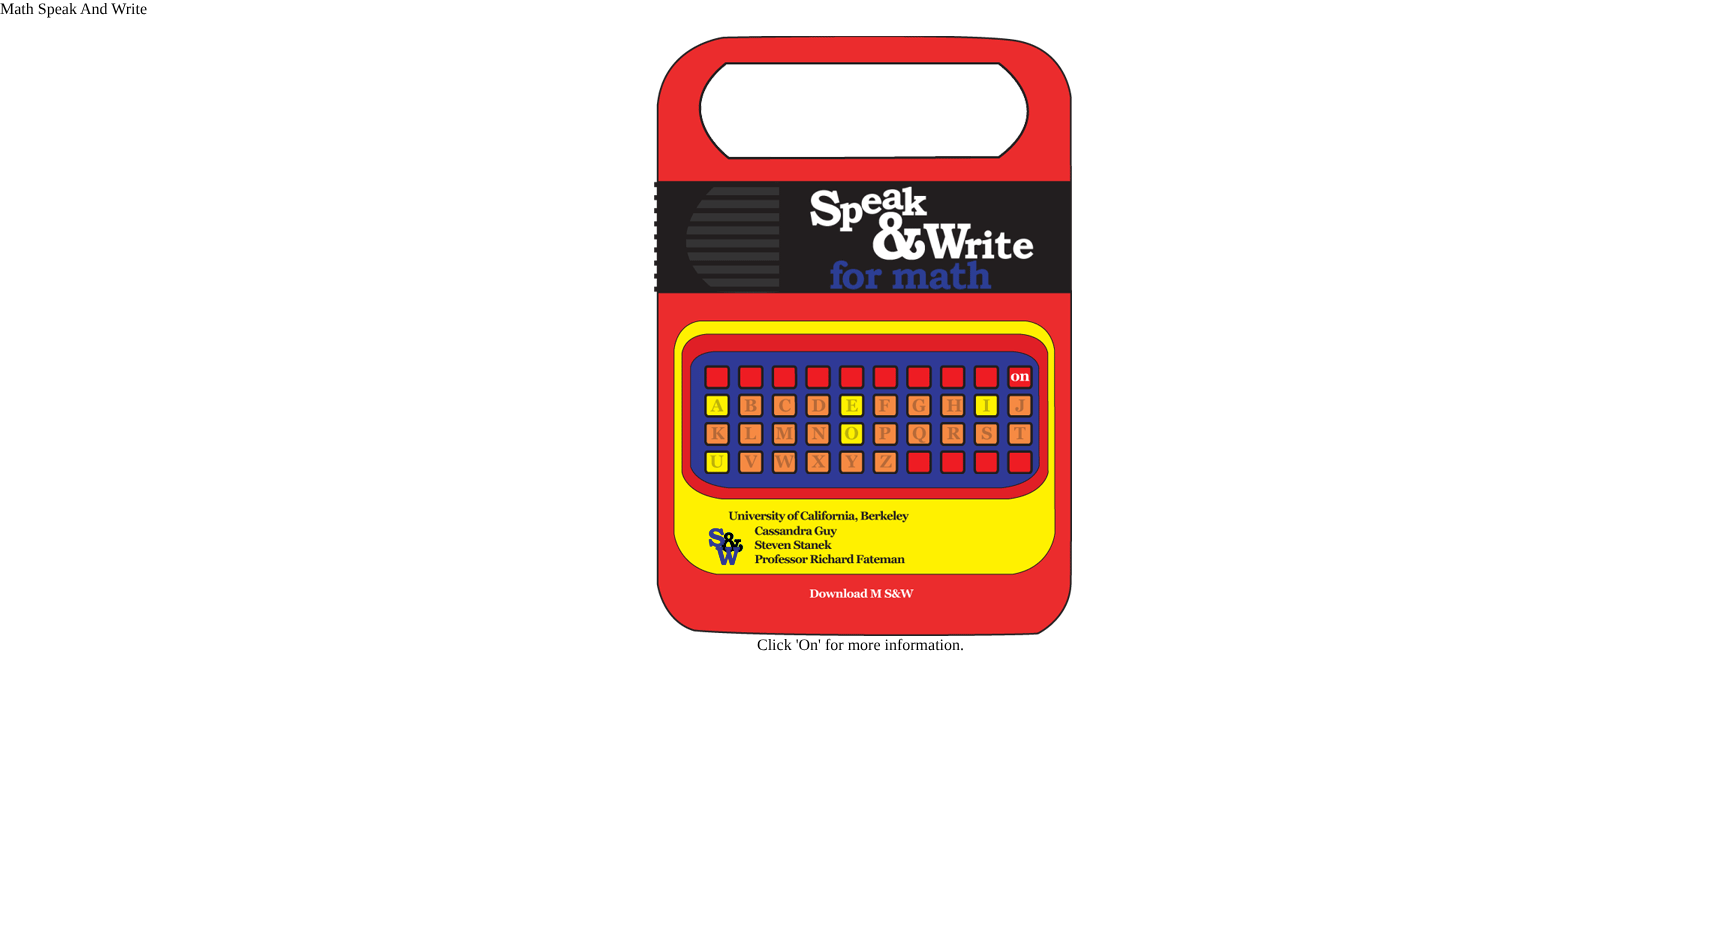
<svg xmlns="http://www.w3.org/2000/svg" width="1722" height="928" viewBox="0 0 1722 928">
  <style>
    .t1 { font: 16px Liberation Serif; fill: #000; }
  </style>
  <rect width="100%" height="100%" fill="#fff"/>
  <text x="0" y="14" class="t1">Math Speak And Write</text>
  <image x="654" y="36" width="418" height="324" href="images/1.png"/>
  <image x="656" y="360" width="44" height="272" href="images/2.png"/>
  <image x="700" y="360" width="333" height="114" href="images/3.png"/>
  <image x="1033" y="360" width="39" height="275" href="images/4.png"/>
  <image x="700" y="474" width="333" height="111" href="images/5.png"/>
  <image x="700" y="585" width="94" height="51" href="images/6.png"/>
  <image x="794" y="585" width="134" height="21" href="images/7.png"/>
  <image x="928" y="585" width="105" height="51" href="images/8.png"/>
  <image x="794" y="606" width="134" height="30" href="images/9.png"/>
  <text x="757" y="650" class="t1">Click 'On' for more information.</text>
</svg>
